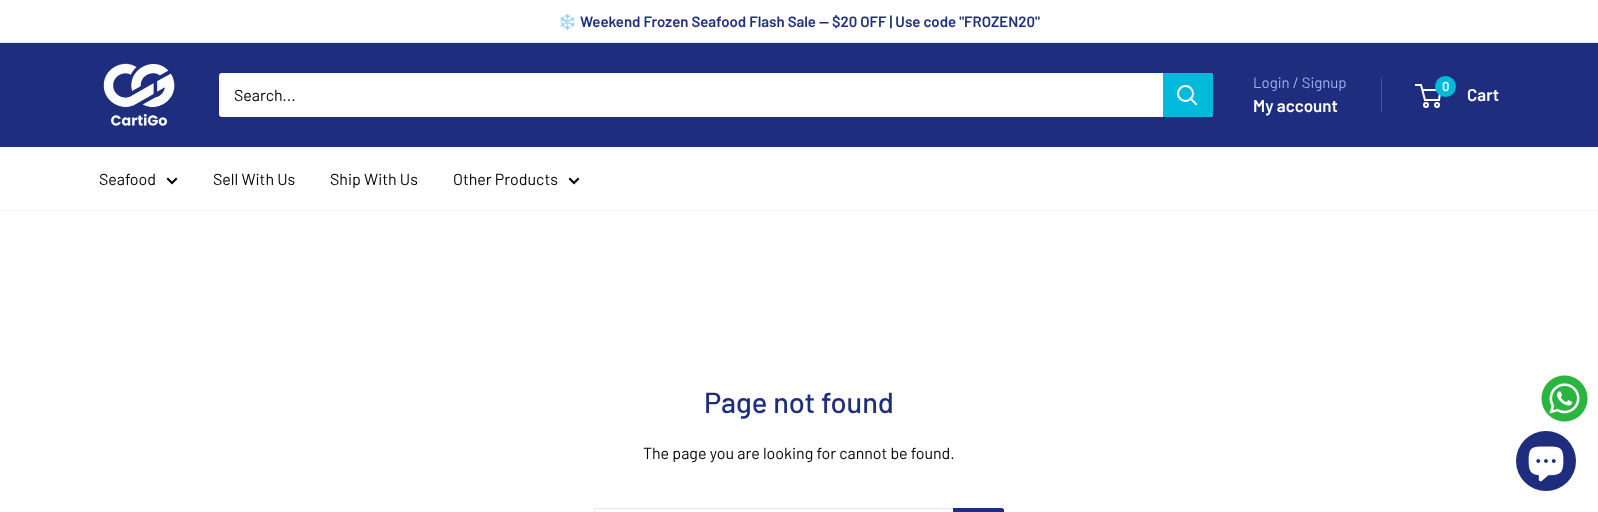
<svg xmlns="http://www.w3.org/2000/svg" width="1598" height="512" viewBox="0 0 1598 512">
  <style>
    .t1 { font: bold 15px Noto Color Emoji; fill: #1e2d7d; }
    .t2 { font: 600 15px Barlow; fill: #1e2d7d; }
    .t3 { font: 16px Barlow; fill: #000; }
    .t4 { font: 15px Barlow; fill: #a3afef; }
    .t5 { font: 600 17px Barlow; fill: #fff; }
    .t6 { font: 600 13px Barlow; fill: #fff; }
    .t7 { font: 500 29px Barlow; fill: #1e2d7d; }
  </style>
  <rect width="100%" height="100%" fill="#fff"/>
  <rect x="0" y="42" width="1598" height="1" fill="#e3e7fa"/>
  <text x="558" y="27" class="t1">❄️</text>
  <text x="580" y="27" class="t2">Weekend Frozen Seafood Flash Sale — $20 OFF | Use code "FROZEN20"</text>
  <rect x="0" y="43" width="1598" height="104" fill="#1e2d7d"/>
  <image x="103" y="63" width="72" height="63" href="images/1.png"/>
  <rect x="219" y="73" width="994" height="44" rx="3" fill="#fff"/>
  <text x="234" y="101" class="t3">Search...</text>
  <path d="M1163 73H1210C1211.5 73 1213 74.5 1213 76V114C1213 115.5 1211.5 117 1210 117H1163Z" fill="#00badb"/>
  <path d="M1196 104L1191 99" fill="none" stroke="#fff" stroke-width="2" stroke-linecap="square"/>
  <circle cx="1185.5" cy="93.5" r="7.5" fill="none" stroke="#fff" stroke-width="2"/>
  <text x="1253" y="88" class="t4">Login / Signup</text>
  <rect x="1381" y="78" width="1" height="34" fill="#46549f"/>
  <text x="1253" y="112" class="t5">My account</text>
  <circle cx="1426" cy="105" r="2" fill="none" stroke="#fff" stroke-width="2"/>
  <circle cx="1437" cy="105" r="2" fill="none" stroke="#fff" stroke-width="2"/>
  <path d="M1422.5 90H1440.5L1439 100H1425L1421 85H1415" fill="none" stroke="#fff" stroke-width="2"/>
  <circle cx="1445.5" cy="86.5" r="10.5" fill="#00badb"/>
  <text x="1442" y="91" class="t6">0</text>
  <text x="1467" y="101" class="t5">Cart</text>
  <rect x="0" y="210" width="1598" height="1" fill="#f3f5f6"/>
  <text x="99" y="185" class="t3">Seafood</text>
  <path d="M176 179L172 183L168 179" fill="none" stroke="#000" stroke-width="2" stroke-linecap="square"/>
  <text x="213" y="185" class="t3">Sell With Us</text>
  <text x="330" y="185" class="t3">Ship With Us</text>
  <text x="453" y="185" class="t3">Other Products</text>
  <path d="M578 179L574 183L570 179" fill="none" stroke="#000" stroke-width="2" stroke-linecap="square"/>
  <text x="704" y="413" class="t7">Page not found</text>
  <text x="643" y="459" class="t3">The page you are looking for cannot be found.</text>
  <path d="M596 510H953V509H596C595 509 595 510 595 511C595 510 595 510 596 510Z" fill="#fcfdfd"/>
  <rect x="595" y="508" width="358" height="1" fill="#e4e9eb"/>
  <rect x="594" y="509" width="1" height="3" fill="#e4e9eb"/>
  <path d="M953 508H1002C1003 508 1004 509 1004 510V512C1004 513 1003 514 1002 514H953Z" fill="#1e2d7d"/>
  <image x="1541" y="375" width="47" height="47" href="images/2.png"/>
  <circle cx="1546" cy="461" r="30" fill="#1e2d7d"/>
  <image x="1528" y="446" width="36" height="36" href="images/3.png"/>
</svg>
